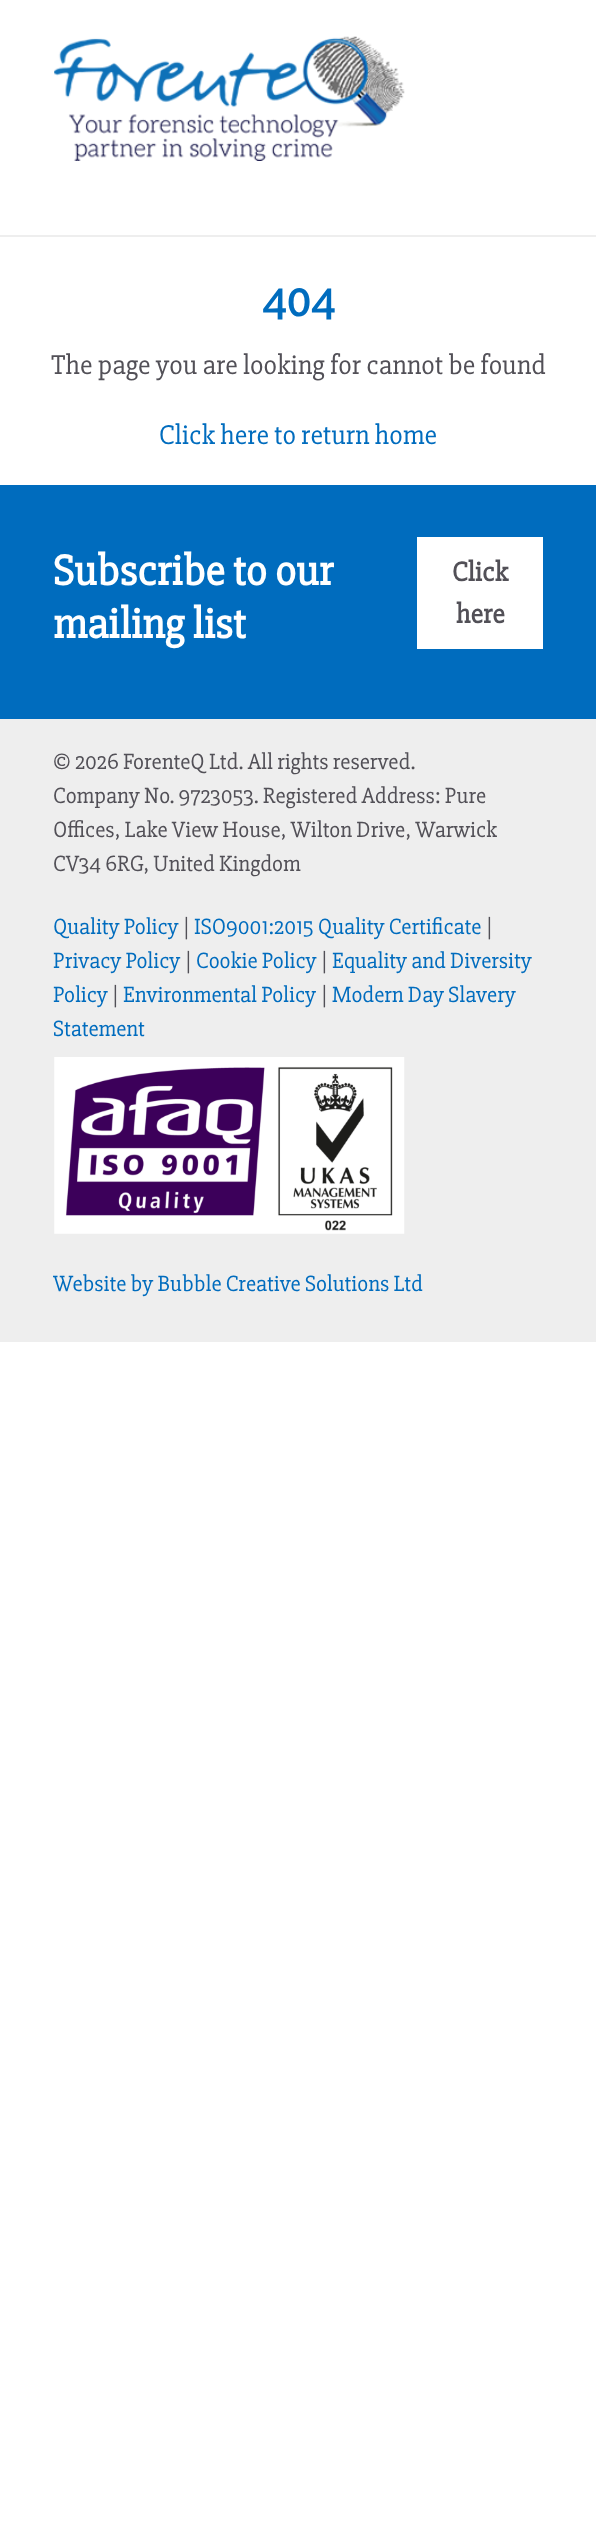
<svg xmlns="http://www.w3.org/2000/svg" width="596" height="2538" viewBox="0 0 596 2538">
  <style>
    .t1 { font: bold 47px 'Slabo 27px'; fill: #006cbe; }
    .t2 { font: 28px 'Slabo 27px'; fill: #525057; }
    .t3 { font: 28px 'Slabo 27px'; fill: #006cbe; }
    .t4 { font: bold 43.75px 'Slabo 27px'; fill: #fff; }
    .t5 { font: bold 28px 'Slabo 27px'; fill: #525057; }
    .t6 { font: 22.75px 'Slabo 27px'; fill: #525057; }
    .t7 { font: 22.75px 'Slabo 27px'; fill: #006cbe; }
  </style>
  <rect width="100%" height="100%" fill="#fff"/>
  <image x="54" y="36" width="351" height="125" href="images/1.png"/>
  <rect x="0" y="235" width="596" height="2" fill="#eee"/>
  <text x="262" y="316" class="t1">404</text>
  <text x="51" y="374" class="t2">The page you are looking for cannot be found</text>
  <text x="159" y="444" class="t3">Click here to return home</text>
  <rect x="0" y="719" width="596" height="623" fill="#eee"/>
  <rect x="0" y="485" width="596" height="234" fill="#006cbe"/>
  <text x="53" y="585" class="t4">Subscribe to our</text>
  <text x="53" y="638" class="t4">mailing list</text>
  <rect x="417" y="537" width="126" height="112" fill="#fff"/>
  <text x="452" y="581" class="t5">Click</text>
  <text x="456" y="623" class="t5">here</text>
  <text x="53" y="769" class="t6">© 2026 ForenteQ Ltd. All rights reserved.</text>
  <text x="53" y="803" class="t6">Company No. 9723053. Registered Address: Pure</text>
  <text x="53" y="837" class="t6">Offices, Lake View House, Wilton Drive, Warwick</text>
  <text x="53" y="871" class="t6">CV34 6RG, United Kingdom</text>
  <text x="53" y="934" class="t7">Quality Policy</text>
  <text x="183" y="934" class="t6">|</text>
  <text x="194" y="934" class="t7">ISO9001:2015 Quality Certificate</text>
  <text x="486" y="934" class="t6">|</text>
  <text x="53" y="968" class="t7">Privacy Policy</text>
  <text x="185" y="968" class="t6">|</text>
  <text x="196" y="968" class="t7">Cookie Policy</text>
  <text x="321" y="968" class="t6">|</text>
  <text x="332" y="968" class="t7">Equality and Diversity</text>
  <text x="53" y="1002" class="t7">Policy</text>
  <text x="112" y="1002" class="t6">|</text>
  <text x="123" y="1002" class="t7">Environmental Policy</text>
  <text x="321" y="1002" class="t6">|</text>
  <text x="332" y="1002" class="t7">Modern Day Slavery</text>
  <text x="53" y="1036" class="t7">Statement</text>
  <image x="54" y="1057" width="351" height="177" href="images/2.png"/>
  <text x="53" y="1291" class="t7">Website by Bubble Creative Solutions Ltd</text>
</svg>
